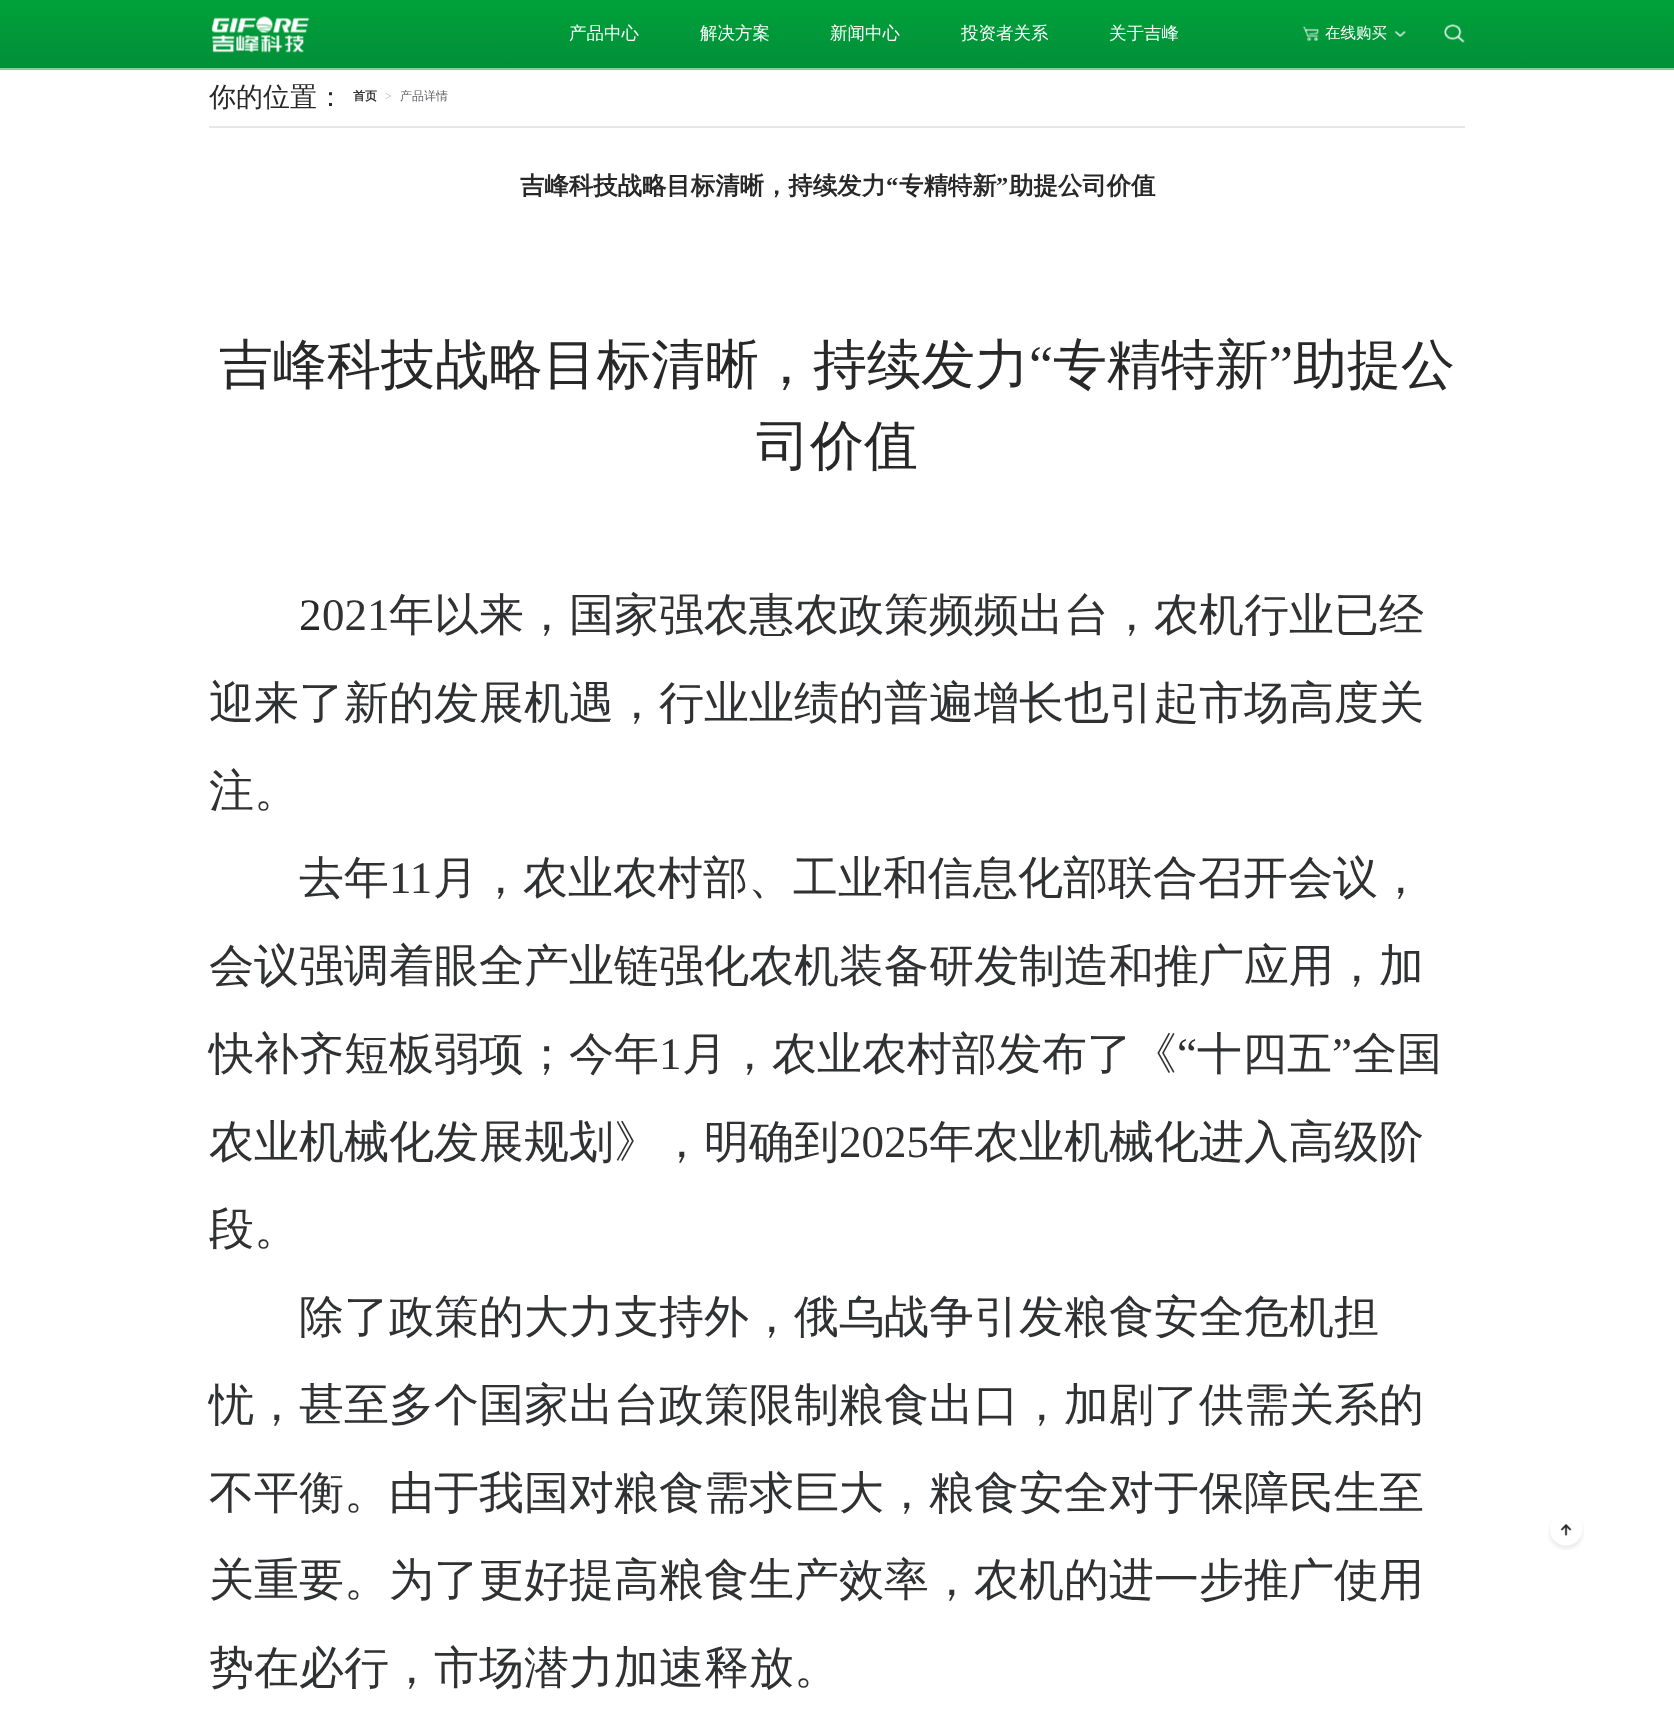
<svg xmlns="http://www.w3.org/2000/svg" width="1674" height="1730" viewBox="0 0 1674 1730">
  <style>
    .t1 { font: 500 17.5px WenQuanYi Zen Hei; fill: #fff; }
    .t2 { font: 500 15.5px WenQuanYi Zen Hei; fill: #fff; }
    .t3 { font: 500 27px WenQuanYi Zen Hei; fill: #282828; }
    .t4 { font: bold 12px WenQuanYi Zen Hei; fill: #303133; }
    .t5 { font: bold 12px Liberation Serif; fill: #c0c4cc; }
    .t6 { font: 500 12px WenQuanYi Zen Hei; fill: #606266; }
    .t7 { font: bold 24.4px WenQuanYi Zen Hei; fill: #282828; }
    .t8 { font: bold 24.4px Liberation Serif; fill: #282828; }
    .t9 { font: 500 54px WenQuanYi Zen Hei; fill: #282828; }
    .t10 { font: 54px Liberation Serif; fill: #282828; }
    .t11 { font: 45px Liberation Serif; fill: #282828; }
    .t12 { font: 45px Liberation Serif; fill: #303133; }
    .t13 { font: 500 45px WenQuanYi Zen Hei; fill: #303133; }
  </style>
  <defs>
    <linearGradient id="g1" gradientUnits="userSpaceOnUse" x1="837" y1="0" x2="837" y2="68"><stop offset="0" stop-color="#00a13a"/><stop offset="1" stop-color="#028f39"/></linearGradient>
  </defs>
  <rect width="100%" height="100%" fill="#fff"/>
  <rect x="0" y="0" width="1674" height="68" fill="url(#g1)"/>
  <rect x="0" y="68" width="1674" height="2" fill="#80d09d"/>
  <image x="211" y="16" width="99" height="37" href="images/1.png"/>
  <text x="569" y="39" class="t1">产品中心</text>
  <text x="700" y="39" class="t1">解决方案</text>
  <text x="830" y="39" class="t1">新闻中心</text>
  <text x="961" y="39" class="t1">投资者关系</text>
  <text x="1109" y="39" class="t1">关于吉峰</text>
  <image x="1302" y="26" width="17" height="16" href="images/2.png"/>
  <text x="1325" y="38" class="t2">在线购买</text>
  <image x="1394" y="31" width="12" height="6" href="images/3.png"/>
  <image x="1444" y="24" width="21" height="19" href="images/4.png"/>
  <rect x="209" y="126" width="1256" height="2" fill="#e5e7eb"/>
  <text x="209" y="106" class="t3">你的位置：</text>
  <text x="353" y="100" class="t4">首页</text>
  <text x="385" y="100" class="t5">&gt;</text>
  <text x="400" y="100" class="t6">产品详情</text>
  <text x="520" y="194" class="t7">吉峰科技战略目标清晰，持续发力</text>
  <text x="886" y="194" class="t8">“</text>
  <text x="899" y="194" class="t7">专精特新</text>
  <text x="996" y="194" class="t8">”</text>
  <text x="1009" y="194" class="t7">助提公司价值</text>
  <text x="219" y="383" class="t9">吉峰科技战略目标清晰，持续发力</text>
  <text x="1029" y="383" class="t10">“</text>
  <text x="1053" y="383" class="t9">专精特新</text>
  <text x="1269" y="383" class="t10">”</text>
  <text x="1293" y="383" class="t9">助提公</text>
  <text x="756" y="464" class="t9">司价值</text>
  <text x="299" y="630" class="t11">2</text>
  <text x="322" y="630" class="t12">021</text>
  <text x="389" y="630" class="t13">年以来，国家强农惠农政策频频出台，农机行业已经</text>
  <text x="209" y="718" class="t13">迎来了新的发展机遇，行业业绩的普遍增长也引起市场高度关</text>
  <text x="209" y="806" class="t13">注。</text>
  <text x="299" y="893" class="t13">去年</text>
  <text x="389" y="893" class="t12">11</text>
  <text x="433" y="893" class="t13">月，农业农村部、工业和信息化部联合召开会议，</text>
  <text x="209" y="981" class="t13">会议强调着眼全产业链强化农机装备研发制造和推广应用，加</text>
  <text x="209" y="1069" class="t13">快补齐短板弱项；今年</text>
  <text x="659" y="1069" class="t12">1</text>
  <text x="682" y="1069" class="t13">月，农业农村部发布了《</text>
  <text x="1177" y="1069" class="t12">“</text>
  <text x="1197" y="1069" class="t13">十四五</text>
  <text x="1332" y="1069" class="t12">”</text>
  <text x="1352" y="1069" class="t13">全国</text>
  <text x="209" y="1157" class="t13">农业机械化发展规划》，明确到</text>
  <text x="839" y="1157" class="t12">2025</text>
  <text x="929" y="1157" class="t13">年农业机械化进入高级阶</text>
  <text x="209" y="1244" class="t13">段。</text>
  <text x="299" y="1332" class="t13">除了政策的大力支持外，俄乌战争引发粮食安全危机担</text>
  <text x="209" y="1420" class="t13">忧，甚至多个国家出台政策限制粮食出口，加剧了供需关系的</text>
  <text x="209" y="1508" class="t13">不平衡。由于我国对粮食需求巨大，粮食安全对于保障民生至</text>
  <text x="209" y="1595" class="t13">关重要。为了更好提高粮食生产效率，农机的进一步推广使用</text>
  <text x="209" y="1683" class="t13">势在必行，市场潜力加速释放。</text>
  <image x="1548" y="1519" width="36" height="31" href="images/5.png"/>
</svg>
